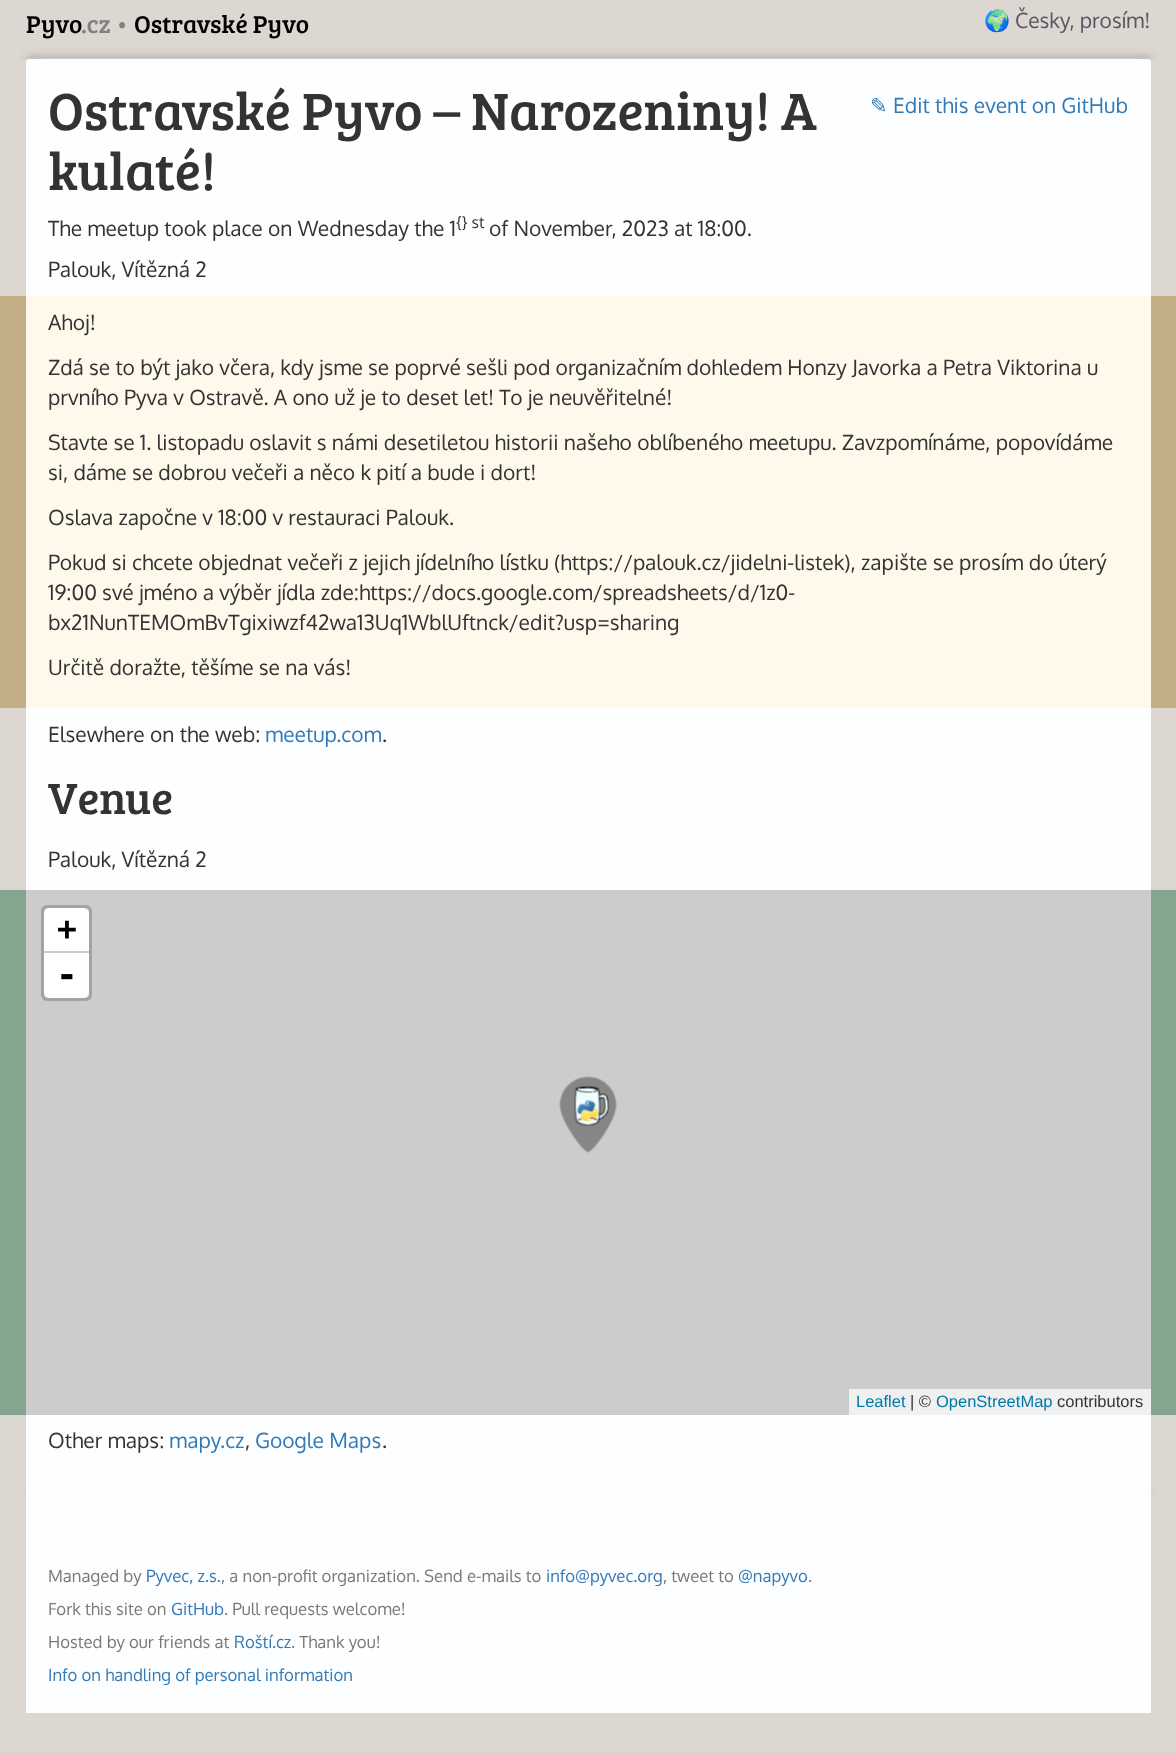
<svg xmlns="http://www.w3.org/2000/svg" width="1176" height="1753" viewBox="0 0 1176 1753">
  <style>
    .t1 { font: 25.25px Bree Serif; fill: #000; }
    .t2 { font: 25.25px Bree Serif; fill: #808080; }
    .t3 { font: 21px Noto Color Emoji; fill: #555666; }
    .t4 { font: 21px Oxygen; fill: #555666; }
    .t5 { font: 54px Bree Serif; fill: #333; }
    .t6 { font: 21px DejaVu Sans; fill: #337ab7; }
    .t7 { font: 21px Oxygen; fill: #337ab7; }
    .t8 { font: 21px Oxygen; fill: #333; }
    .t9 { font: 16px Oxygen; fill: #333; }
    .t10 { font: 45px Bree Serif; fill: #333; }
    .t11 { font: bold 33px DejaVu Sans Mono; fill: #000; }
    .t12 { font: bold 36px DejaVu Sans Mono; fill: #000; }
    .t13 { font: 16.5px Liberation Sans; fill: #0078a8; }
    .t14 { font: 16.5px Liberation Sans; fill: #333; }
    .t15 { font: 16.75px Oxygen; fill: #78797a; }
    .t16 { font: 16.75px Oxygen; fill: #337ab7; }
  </style>
  <rect width="100%" height="100%" fill="#dcd7d1"/>
  <text x="26" y="33" class="t1">Pyvo</text>
  <text x="81" y="33" class="t2">.cz •</text>
  <text x="134" y="33" class="t1">Ostravské Pyvo</text>
  <text x="984" y="28" class="t3">🌍</text>
  <text x="1015" y="28" class="t4">Česky, prosím!</text>
  <rect x="26" y="57" width="1125" height="1430" rx="3" fill="#a8a8a8" filter="blur(4px)"/>
  <rect x="41" y="59" width="1125" height="1429" rx="3" fill="#dcd7d1" filter="blur(1px)"/>
  <rect x="11" y="59" width="1125" height="1429" rx="3" fill="#dcd7d1" filter="blur(1px)"/>
  <path d="M29 59H1148C1149.5 59 1151 60.5 1151 62V1488H26V62C26 60.5 27.5 59 29 59Z" fill="#fdfeff"/>
  <text x="48" y="130" class="t5">Ostravské Pyvo – Narozeniny! A</text>
  <text x="48" y="190" class="t5">kulaté!</text>
  <text x="870" y="113" class="t6">✎</text>
  <text x="893" y="113" class="t7">Edit this event on GitHub</text>
  <text x="48" y="236" class="t8">The meetup took place on Wednesday the 1</text>
  <text x="456" y="228" class="t9">{} st</text>
  <text x="489" y="236" class="t8">of November, 2023 at 18:00.</text>
  <text x="48" y="277" class="t8">Palouk, Vítězná 2</text>
  <rect x="1151" y="296" width="25" height="412" fill="#c2ae84"/>
  <rect x="0" y="296" width="26" height="412" fill="#c2ae84"/>
  <rect x="26" y="296" width="1125" height="412" fill="#fff9ec"/>
  <text x="48" y="330" class="t8">Ahoj!</text>
  <text x="48" y="375" class="t8">Zdá se to být jako včera, kdy jsme se poprvé sešli pod organizačním dohledem Honzy Javorka a Petra Viktorina u</text>
  <text x="48" y="405" class="t8">prvního Pyva v Ostravě. A ono už je to deset let! To je neuvěřitelné!</text>
  <text x="48" y="450" class="t8">Stavte se 1. listopadu oslavit s námi desetiletou historii našeho oblíbeného meetupu. Zavzpomínáme, popovídáme</text>
  <text x="48" y="480" class="t8">si, dáme se dobrou večeři a něco k pití a bude i dort!</text>
  <text x="48" y="525" class="t8">Oslava započne v 18:00 v restauraci Palouk.</text>
  <text x="48" y="570" class="t8">Pokud si chcete objednat večeři z jejich jídelního lístku (https://palouk.cz/jidelni-listek), zapište se prosím do úterý</text>
  <text x="48" y="600" class="t8">19:00 své jméno a výběr jídla zde:https://docs.google.com/spreadsheets/d/1z0-</text>
  <text x="48" y="630" class="t8">bx21NunTEMOmBvTgixiwzf42wa13Uq1WblUftnck/edit?usp=sharing</text>
  <text x="48" y="675" class="t8">Určitě doražte, těšíme se na vás!</text>
  <text x="48" y="742" class="t8">Elsewhere on the web:</text>
  <text x="265" y="742" class="t7">meetup.com</text>
  <text x="382" y="742" class="t8">.</text>
  <text x="48" y="814" class="t10">Venue</text>
  <text x="48" y="867" class="t8">Palouk, Vítězná 2</text>
  <rect x="1151" y="890" width="25" height="525" fill="#86a58e"/>
  <path d="M-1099 890V1415H26V1414V890Z" fill="#86a58e"/>
  <rect x="26" y="890" width="1125" height="525" fill="#ccc"/>
  <rect x="42.5" y="906.5" width="48" height="93" rx="4.5" fill="none" stroke="#a3a3a3" stroke-width="3"/>
  <path d="M50 908H83C86.5 908 89 910.5 89 914V953H44V914C44 910.5 46.5 908 50 908Z" fill="#fff"/>
  <rect x="44" y="951" width="45" height="2" fill="#ccc"/>
  <text x="57" y="940" class="t11">+</text>
  <path d="M44 953H89V992C89 995.5 86.5 998 83 998H50C46.5 998 44 995.5 44 992Z" fill="#fff"/>
  <text x="56" y="987" class="t12">-</text>
  <rect x="849" y="1389" width="302" height="26" fill="#f0f0f0"/>
  <text x="856" y="1407" class="t13">Leaflet</text>
  <text x="910" y="1407" class="t14">| ©</text>
  <text x="936" y="1407" class="t13">OpenStreetMap</text>
  <text x="1057" y="1407" class="t14">contributors</text>
  <image x="559" y="1076" width="58" height="77" href="images/1.png"/>
  <text x="48" y="1448" class="t8">Other maps:</text>
  <text x="169" y="1448" class="t7">mapy.cz</text>
  <text x="245" y="1448" class="t8">,</text>
  <text x="255" y="1448" class="t7">Google Maps</text>
  <text x="382" y="1448" class="t8">.</text>
  <rect x="26" y="1488" width="1125" height="225" fill="#fdfeff"/>
  <text x="48" y="1582" class="t15">Managed by</text>
  <text x="146" y="1582" class="t16">Pyvec, z.s.</text>
  <text x="221" y="1582" class="t15">, a non-profit organization. Send e-mails to</text>
  <text x="546" y="1582" class="t16">info@pyvec.org</text>
  <text x="663" y="1582" class="t15">, tweet to</text>
  <text x="738" y="1582" class="t16">@napyvo</text>
  <text x="808" y="1582" class="t15">.</text>
  <text x="48" y="1615" class="t15">Fork this site on</text>
  <text x="171" y="1615" class="t16">GitHub</text>
  <text x="224" y="1615" class="t15">. Pull requests welcome!</text>
  <text x="48" y="1648" class="t15">Hosted by our friends at</text>
  <text x="234" y="1648" class="t16">Roští.cz</text>
  <text x="291" y="1648" class="t15">. Thank you!</text>
  <text x="48" y="1681" class="t16">Info on handling of personal information</text>
</svg>
